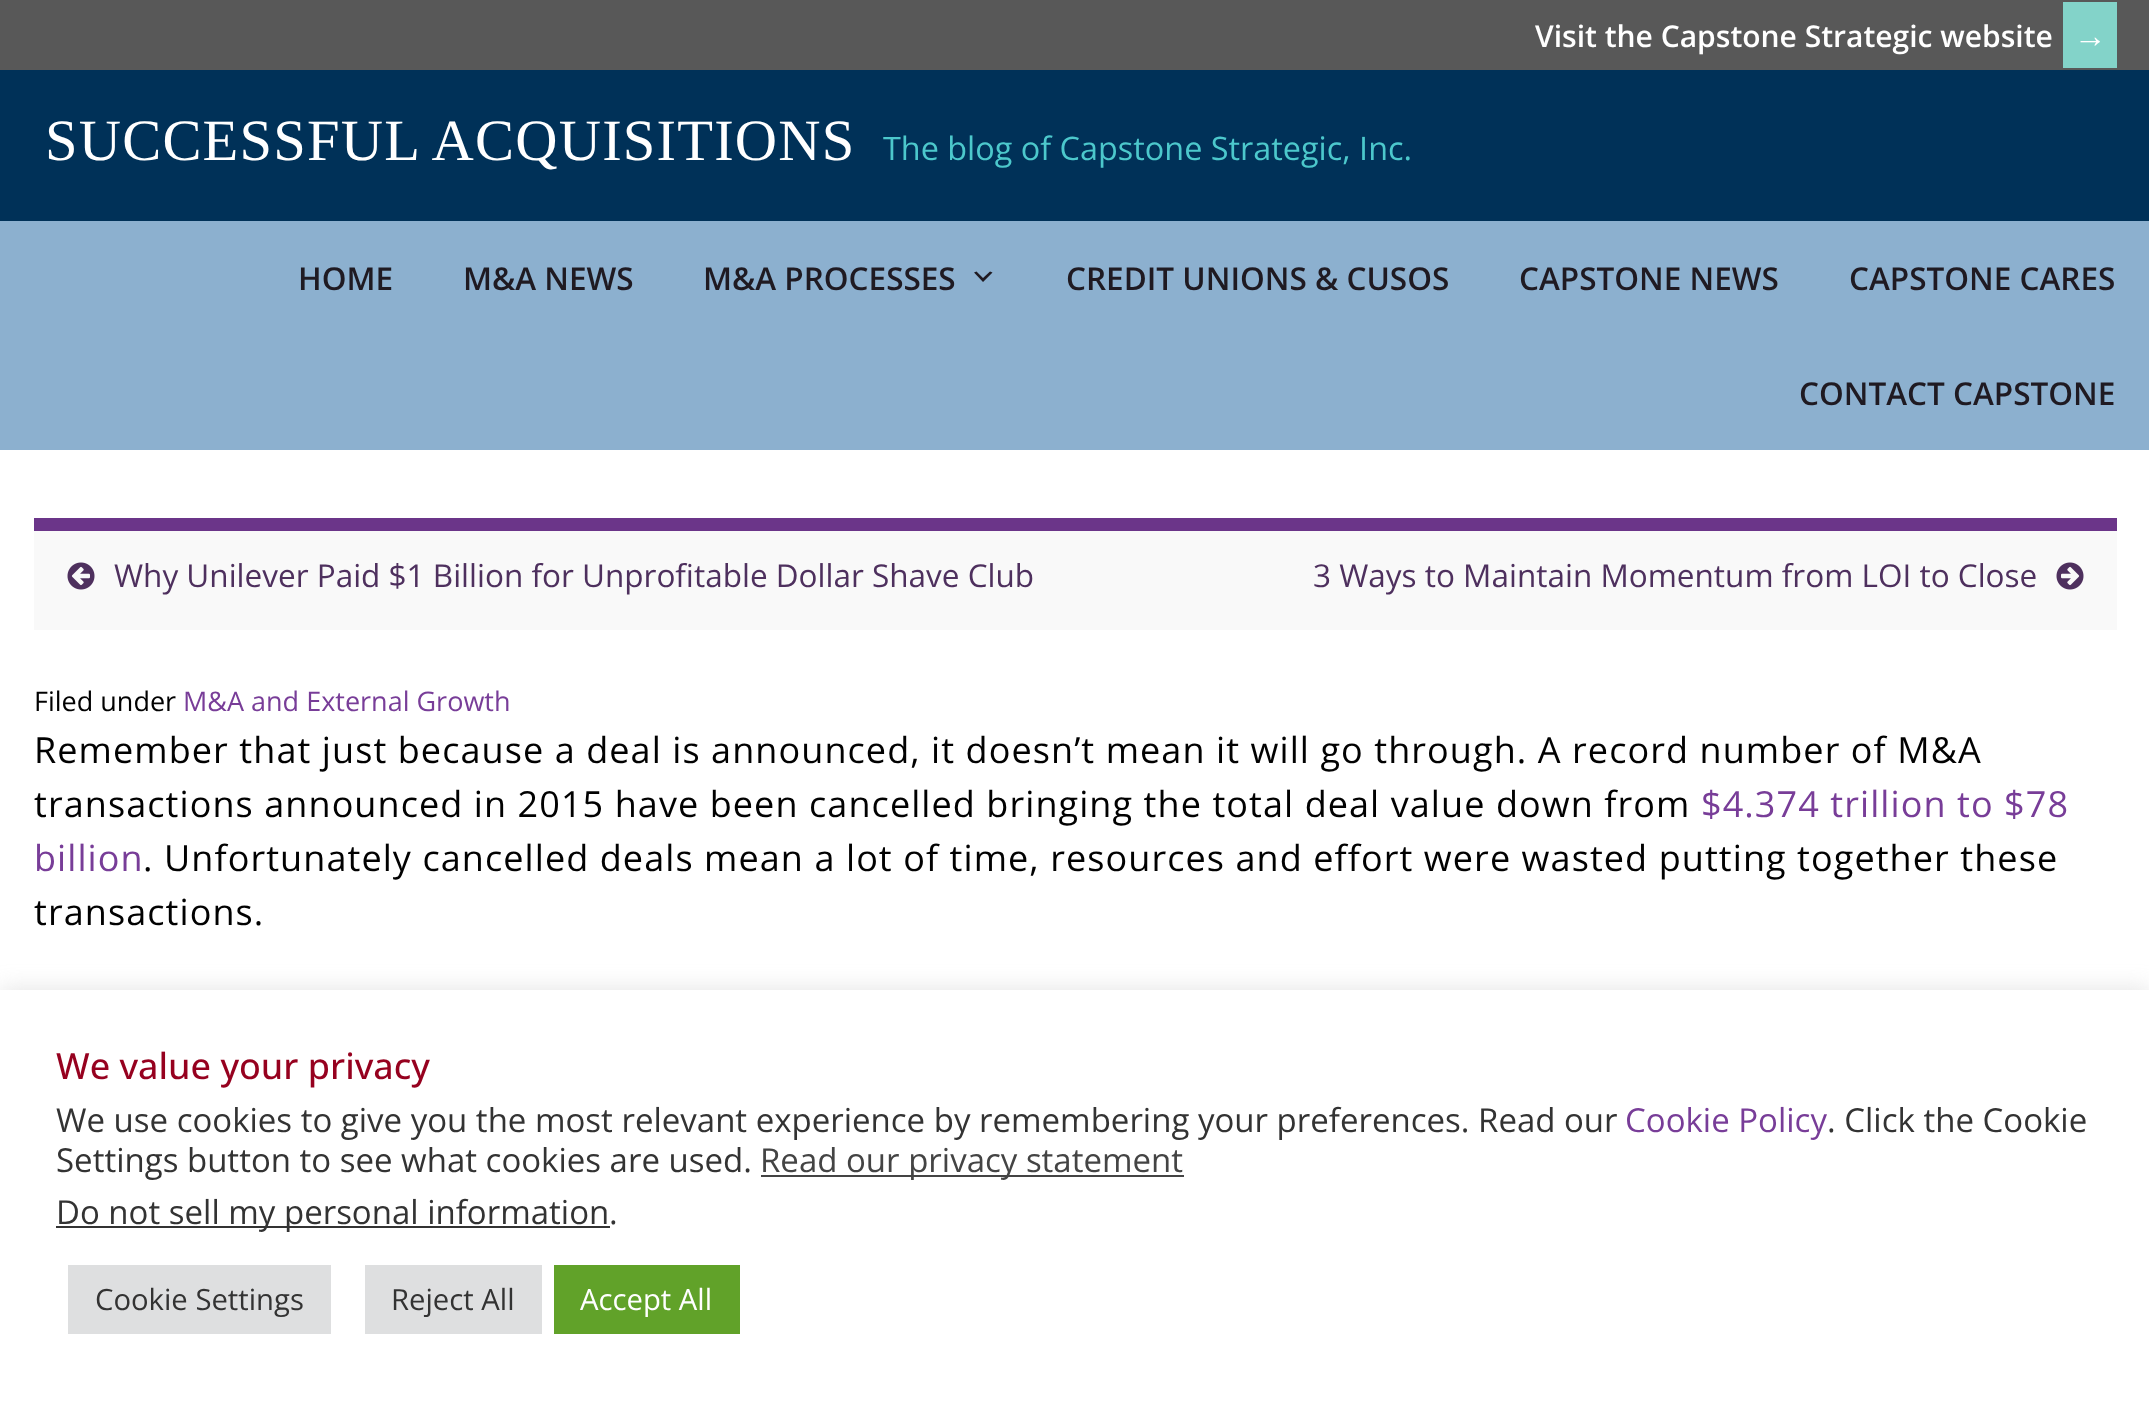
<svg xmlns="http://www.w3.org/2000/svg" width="2149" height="1401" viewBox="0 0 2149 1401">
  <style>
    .t1 { font: 600 30px Open Sans; fill: #fff; }
    .t2 { font: bold 32.4px Liberation Sans; fill: #fff; }
    .t3 { font: 58.5px Liberation Serif; letter-spacing: 1.2px; fill: #fff; }
    .t4 { font: 32.4px Open Sans; fill: #4cc8cc; }
    .t5 { font: 600 31.5px Open Sans; fill: #1f1a22; }
    .t6 { font: 31.5px Open Sans; fill: #4e305e; }
    .t7 { font: 27px Open Sans; fill: #010101; }
    .t8 { font: 27px Open Sans; fill: #783d98; }
    .t9 { font: 36px Open Sans; letter-spacing: 1.08px; fill: #010101; }
    .t10 { font: 36px Open Sans; letter-spacing: 1.08px; fill: #783d98; }
    .t11 { font: 500 36px Open Sans; fill: #96011f; }
    .t12 { font: 33px Open Sans; fill: #333; }
    .t13 { font: 33px Open Sans; fill: #783d98; }
    .t14 { font: 33px Open Sans; fill: #444; }
    .t15 { font: 29.25px Open Sans; fill: #333; }
    .t16 { font: 29.25px Open Sans; fill: #fff; }
  </style>
  <rect width="100%" height="100%" fill="#fff"/>
  <rect x="0" y="0" width="2149" height="70" fill="#585858"/>
  <text x="1535" y="47" class="t1">Visit the Capstone Strategic website</text>
  <rect x="2063" y="2" width="54" height="66" fill="#83d3c9"/>
  <text x="2074" y="47" class="t2">→</text>
  <rect x="0" y="70" width="2149" height="151" fill="#003158"/>
  <text x="45" y="160" class="t3">SUCCESSFUL ACQUISITIONS</text>
  <text x="883" y="160" class="t4">The blog of Capstone Strategic, Inc.</text>
  <rect x="0" y="221" width="2149" height="229" fill="#8cb0cf"/>
  <text x="298" y="290" class="t5">HOME</text>
  <text x="463" y="290" class="t5">M&amp;A NEWS</text>
  <text x="703" y="290" class="t5">M&amp;A PROCESSES</text>
  <path d="M976.5 271.5L983 278L990 271.5L992.5 272.5L983 282L974 272.5Z" fill="#1f1a22"/>
  <text x="1066" y="290" class="t5">CREDIT UNIONS &amp; CUSOS</text>
  <text x="1519" y="290" class="t5">CAPSTONE NEWS</text>
  <text x="1849" y="290" class="t5">CAPSTONE CARES</text>
  <text x="1799" y="405" class="t5">CONTACT CAPSTONE</text>
  <rect x="34" y="531" width="2083" height="99" fill="#f9f9f9"/>
  <rect x="34" y="518" width="2083" height="13" fill="#6b3589"/>
  <image x="67" y="562" width="28" height="28" href="images/1.png"/>
  <text x="114" y="587" class="t6">Why Unilever Paid $1 Billion for Unprofitable Dollar Shave Club</text>
  <text x="1313" y="587" class="t6">3 Ways to Maintain Momentum from LOI to Close</text>
  <image x="2056" y="562" width="28" height="28" href="images/2.png"/>
  <text x="34" y="711" class="t7">Filed under</text>
  <text x="183" y="711" class="t8">M&amp;A and External Growth</text>
  <text x="34" y="763" class="t9">Remember that just because a deal is announced, it doesn’t mean it will go through. A record number of M&amp;A</text>
  <text x="34" y="817" class="t9">transactions announced in 2015 have been cancelled bringing the total deal value down from</text>
  <text x="1701" y="817" class="t10">$4.374 trillion to $78</text>
  <text x="34" y="871" class="t10">billion</text>
  <text x="143" y="871" class="t9">. Unfortunately cancelled deals mean a lot of time, resources and effort were wasted putting together these</text>
  <text x="34" y="925" class="t9">transactions.</text>
  <rect x="0" y="988" width="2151" height="412" fill="#acabab4d" filter="blur(11px)"/>
  <rect x="0" y="990" width="2149" height="411" fill="#fff"/>
  <text x="56" y="1079" class="t11">We value your privacy</text>
  <text x="56" y="1132" class="t12">We use cookies to give you the most relevant experience by remembering your preferences. Read our</text>
  <text x="1625" y="1132" class="t13">Cookie Policy</text>
  <text x="1827" y="1132" class="t12">. Click the Cookie</text>
  <text x="56" y="1172" class="t12">Settings button to see what cookies are used.</text>
  <rect x="761" y="1175" width="423" height="2" fill="#444"/>
  <text x="760" y="1172" class="t14">Read our privacy statement</text>
  <rect x="56" y="1226" width="554" height="2" fill="#333"/>
  <text x="56" y="1224" class="t12">Do not sell my personal information</text>
  <text x="609" y="1224" class="t12">.</text>
  <rect x="68" y="1265" width="263" height="69" fill="#dedfe0"/>
  <text x="95" y="1310" class="t15">Cookie Settings</text>
  <rect x="365" y="1265" width="177" height="69" fill="#dedfe0"/>
  <text x="391" y="1310" class="t15">Reject All</text>
  <rect x="554" y="1265" width="186" height="69" fill="#61a229"/>
  <text x="580" y="1310" class="t16">Accept All</text>
</svg>
